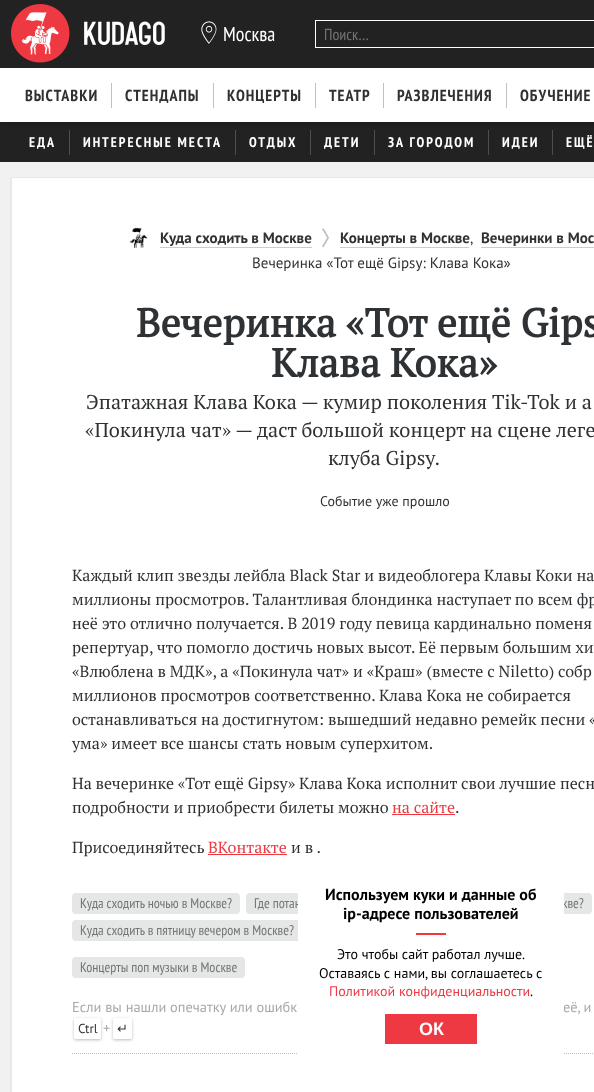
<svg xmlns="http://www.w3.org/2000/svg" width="594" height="1092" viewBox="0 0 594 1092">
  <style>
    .t1 { font: 20px PT Sans Narrow; fill: #fff; }
    .t2 { font: 16px PT Sans Narrow; fill: #757575; }
    .t3 { font: bold 16px PT Sans Narrow; letter-spacing: 1px; fill: #2f3235; }
    .t4 { font: bold 14px PT Sans Narrow; letter-spacing: 2px; fill: #fff; }
    .t5 { font: bold 15px PT Sans; fill: #2f3235; }
    .t6 { font: 15px PT Sans; fill: #2f3235; }
    .t7 { font: bold 40px PT Serif; fill: #2f3235; }
    .t8 { font: 20px PT Serif; fill: #2f3235; }
    .t9 { font: 14px PT Sans; fill: #2f3235; }
    .t10 { font: 16px PT Serif; fill: #2f3235; }
    .t11 { font: 16px PT Serif; fill: #ee3942; }
    .t12 { font: 14px PT Sans Narrow; fill: #757575; }
    .t13 { font: 14.4px PT Sans; fill: #a6a8aa; }
    .t14 { font: 13px PT Sans; fill: #2f3235; }
    .t15 { font: 13px DejaVu Sans; fill: #2f3235; }
    .t16 { font: bold 16px PT Sans; fill: #000; }
    .t17 { font: 14px PT Sans; fill: #000; }
    .t18 { font: 14px PT Sans; fill: #ee3942; }
    .t19 { font: bold 18px Liberation Sans; fill: #fff; }
  </style>
  <defs>
    <clipPath id="clip1"><path d="M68 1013H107V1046H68ZM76 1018H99C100 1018 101 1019 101 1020V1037C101 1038 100 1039 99 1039H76C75 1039 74 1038 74 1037V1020C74 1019 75 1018 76 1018Z" clip-rule="evenodd"/></clipPath>
    <clipPath id="clip2"><path d="M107 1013H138V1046H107ZM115 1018H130C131 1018 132 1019 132 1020V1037C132 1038 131 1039 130 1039H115C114 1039 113 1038 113 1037V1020C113 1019 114 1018 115 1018Z" clip-rule="evenodd"/></clipPath>
  </defs>
  <rect width="100%" height="100%" fill="#f1f1f1"/>
  <rect x="0" y="0" width="594" height="68" fill="#222"/>
  <image x="11" y="4" width="154" height="59" href="images/1.png"/>
  <image x="201" y="21" width="16" height="23" href="images/2.png"/>
  <text x="223" y="41" class="t1">Москва</text>
  <rect x="315.5" y="20.5" width="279" height="27" fill="none" stroke="#fff"/>
  <text x="324" y="40" class="t2">Поиск…</text>
  <rect x="0" y="122" width="594" height="40" fill="#222"/>
  <rect x="69" y="130" width="1" height="25" fill="#4c4f50"/>
  <rect x="235" y="130" width="1" height="25" fill="#4c4f50"/>
  <rect x="310" y="130" width="1" height="25" fill="#4c4f50"/>
  <rect x="374" y="130" width="1" height="25" fill="#4c4f50"/>
  <rect x="488" y="130" width="1" height="25" fill="#4c4f50"/>
  <rect x="552" y="130" width="1" height="25" fill="#4c4f50"/>
  <rect x="0" y="71" width="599" height="54" fill="#0000001a" filter="blur(1.5px)"/>
  <rect x="0" y="68" width="594" height="54" fill="#fff"/>
  <text x="25" y="101" class="t3">ВЫСТАВКИ</text>
  <rect x="111" y="83" width="1" height="25" fill="#bdc2c1"/>
  <text x="125" y="101" class="t3">СТЕНДАПЫ</text>
  <rect x="213" y="83" width="1" height="25" fill="#bdc2c1"/>
  <text x="227" y="101" class="t3">КОНЦЕРТЫ</text>
  <rect x="315" y="83" width="1" height="25" fill="#bdc2c1"/>
  <text x="329" y="101" class="t3">ТЕАТР</text>
  <rect x="383" y="83" width="1" height="25" fill="#bdc2c1"/>
  <text x="397" y="101" class="t3">РАЗВЛЕЧЕНИЯ</text>
  <rect x="506" y="83" width="1" height="25" fill="#bdc2c1"/>
  <text x="520" y="101" class="t3">ОБУЧЕНИЕ</text>
  <text x="29" y="147" class="t4">ЕДА</text>
  <text x="83" y="147" class="t4">ИНТЕРЕСНЫЕ МЕСТА</text>
  <text x="249" y="147" class="t4">ОТДЫХ</text>
  <text x="324" y="147" class="t4">ДЕТИ</text>
  <text x="388" y="147" class="t4">ЗА ГОРОДОМ</text>
  <text x="502" y="147" class="t4">ИДЕИ</text>
  <text x="566" y="147" class="t4">ЕЩЁ</text>
  <rect x="10.5" y="178.5" width="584" height="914" fill="none" stroke="#e6e8ea"/>
  <rect x="11.5" y="177.5" width="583" height="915" fill="#fff" stroke="#e6e8ea"/>
  <image x="129" y="227" width="19" height="21" href="images/3.png"/>
  <text x="160" y="243" class="t5">Куда сходить в Москве</text>
  <rect x="160" y="247" width="152" height="1" fill="#cbcccd"/>
  <path d="M327.5 237L329 238L323.5 247.5L322 246.5Z" fill="#bdc2c1"/>
  <path d="M322 229L323.5 228L329 237.5L327.5 238.5Z" fill="#bdc2c1"/>
  <text x="340" y="243" class="t5">Концерты в Москве</text>
  <rect x="340" y="247" width="129" height="1" fill="#cbcccd"/>
  <text x="470" y="243" class="t6">,</text>
  <text x="481" y="243" class="t5">Вечеринки в Мос</text>
  <rect x="481" y="247" width="113" height="1" fill="#cbcccd"/>
  <text x="252" y="268" class="t6">Вечеринка «Тот ещё Gipsy: Клава Кока»</text>
  <text x="136" y="337" class="t7">Вечеринка «Тот ещё Gips</text>
  <text x="271" y="377" class="t7">Клава Кока»</text>
  <text x="86" y="409" class="t8">Эпатажная Клава Кока — кумир поколения Tik-Tok и а</text>
  <text x="85" y="437" class="t8">«Покинула чат» — даст большой концерт на сцене леге</text>
  <text x="328" y="465" class="t8">клуба Gipsy.</text>
  <text x="320" y="506" class="t9">Событие уже прошло</text>
  <text x="72" y="581" class="t10">Каждый клип звезды лейбла Black Star и видеоблогера Клавы Коки на</text>
  <text x="72" y="605" class="t10">миллионы просмотров. Талантливая блондинка наступает по всем фр</text>
  <text x="72" y="629" class="t10">неё это отлично получается. В 2019 году певица кардинально поменя</text>
  <text x="72" y="653" class="t10">репертуар, что помогло достичь новых высот. Её первым большим хи</text>
  <text x="72" y="677" class="t10">«Влюблена в МДК», а «Покинула чат» и «Краш» (вместе с Niletto) собр</text>
  <text x="72" y="701" class="t10">миллионов просмотров соответственно. Клава Кока не собирается</text>
  <text x="72" y="725" class="t10">останавливаться на достигнутом: вышедший недавно ремейк песни «</text>
  <text x="72" y="749" class="t10">ума» имеет все шансы стать новым суперхитом.</text>
  <text x="72" y="789" class="t10">На вечеринке «Тот ещё Gipsy» Клава Кока исполнит свои лучшие песн</text>
  <text x="72" y="813" class="t10">подробности и приобрести билеты можно</text>
  <text x="392" y="813" class="t11">на сайте</text>
  <rect x="392" y="814" width="63" height="1" fill="#ee3942"/>
  <text x="455" y="813" class="t10">.</text>
  <text x="72" y="853" class="t10">Присоединяйтесь</text>
  <text x="208" y="853" class="t11">ВКонтакте</text>
  <rect x="208" y="854" width="79" height="1" fill="#ee3942"/>
  <text x="291" y="853" class="t10">и в .</text>
  <rect x="72" y="893" width="168" height="21" rx="4" fill="#e5e6e6"/>
  <text x="80" y="908" class="t12">Куда сходить ночью в Москве?</text>
  <rect x="246" y="893" width="149" height="21" rx="4" fill="#e5e6e6"/>
  <text x="254" y="908" class="t12">Где потан</text>
  <rect x="401" y="893" width="191" height="21" rx="4" fill="#e5e6e6"/>
  <text x="562" y="908" class="t12">кве?</text>
  <rect x="72" y="920" width="230" height="21" rx="4" fill="#e5e6e6"/>
  <text x="80" y="935" class="t12">Куда сходить в пятницу вечером в Москве?</text>
  <rect x="72" y="957" width="173" height="21" rx="4" fill="#e5e6e6"/>
  <text x="80" y="972" class="t12">Концерты поп музыки в Москве</text>
  <text x="72" y="1012" class="t13">Если вы нашли опечатку или ошибк</text>
  <text x="563" y="1012" class="t13">её, и</text>
  <g clip-path="url(#clip1)">
    <rect x="74" y="1019" width="27" height="21" rx="2" fill="#1e14324d" filter="blur(1.5px)"/>
  </g>
  <rect x="74.5" y="1018.5" width="26" height="20" rx="1.5" fill="none" stroke="#fff"/>
  <text x="78" y="1033" class="t14">Ctrl</text>
  <text x="103" y="1033" class="t13">+</text>
  <g clip-path="url(#clip2)">
    <rect x="113" y="1019" width="19" height="21" rx="2" fill="#1e14324d" filter="blur(1.5px)"/>
  </g>
  <rect x="113.5" y="1018.5" width="18" height="20" rx="1.5" fill="none" stroke="#fff"/>
  <text x="117" y="1033" class="t15">↵</text>
  <path d="M72 1053.5H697" fill="none" stroke="#bdc2c1" stroke-dasharray="1 1"/>
  <rect x="298" y="893" width="266" height="161" fill="#fff"/>
  <text x="325" y="900" class="t16">Используем куки и данные об</text>
  <text x="343" y="919" class="t16">ip-адресе пользователей</text>
  <rect x="416" y="933" width="30" height="2" fill="#ee3942"/>
  <text x="337" y="959" class="t17">Это чтобы сайт работал лучше.</text>
  <text x="319" y="978" class="t17">Оставаясь с нами, вы соглашаетесь с</text>
  <text x="329" y="996" class="t18">Политикой конфиденциальности</text>
  <text x="530" y="996" class="t17">.</text>
  <rect x="385" y="1014" width="92" height="30" fill="#ee3942"/>
  <text x="419" y="1035" class="t19">ОК</text>
</svg>
